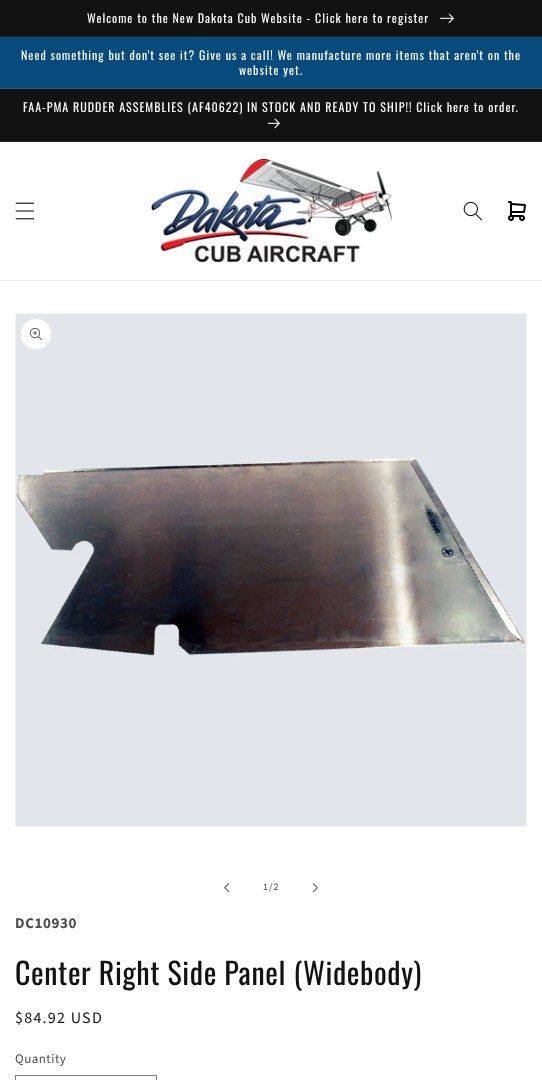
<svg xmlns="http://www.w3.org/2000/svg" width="542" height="1080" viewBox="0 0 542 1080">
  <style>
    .t1 { font: 12px Oswald; letter-spacing: 1px; fill: #fff; }
    .t2 { font: 10px Source Sans Pro; letter-spacing: 1px; fill: #4d4d4d; }
    .t3 { font: bold 15px Source Sans Pro; letter-spacing: 0.6px; fill: #4d4d4d; }
    .t4 { font: 30px Oswald; letter-spacing: 0.6px; fill: #121212; }
    .t5 { font: 16px Source Sans Pro; letter-spacing: 1.25px; fill: #121212; }
    .t6 { font: 13px Source Sans Pro; letter-spacing: 0.5px; fill: #4d4d4d; }
  </style>
  <rect width="100%" height="100%" fill="#fff"/>
  <rect x="0" y="0" width="542" height="36" fill="#121212"/>
  <rect x="0" y="36" width="542" height="1" fill="#252525"/>
  <text x="87" y="23" class="t1">Welcome to the New Dakota Cub Website - Click here to register</text>
  <image x="440" y="13" width="14" height="11" href="images/1.png"/>
  <rect x="0" y="37" width="542" height="51" fill="#074b7d"/>
  <rect x="0" y="88" width="542" height="1" fill="#1b5987"/>
  <text x="21" y="60" class="t1">Need something but don't see it? Give us a call! We manufacture more items that aren't on the</text>
  <text x="239" y="75" class="t1">website yet.</text>
  <rect x="0" y="89" width="542" height="52" fill="#121212"/>
  <rect x="0" y="141" width="542" height="1" fill="#252525"/>
  <text x="23" y="112" class="t1">FAA-PMA RUDDER ASSEMBLIES (AF40622) IN STOCK AND READY TO SHIP!! Click here to order.</text>
  <image x="268" y="118" width="12" height="11" href="images/2.png"/>
  <rect x="0" y="280" width="542" height="1" fill="#ececec"/>
  <image x="15" y="202" width="20" height="18" href="images/3.png"/>
  <image x="151" y="159" width="241" height="103" href="images/4.png"/>
  <image x="463" y="201" width="19" height="20" href="images/5.png"/>
  <image x="508" y="201" width="18" height="20" href="images/6.png"/>
  <rect x="15.5" y="313.5" width="511" height="513" fill="none" stroke="#f3f3f3"/>
  <image x="16" y="314" width="510" height="512" href="images/7.png"/>
  <circle cx="36" cy="334" r="16" fill="#fff"/>
  <circle cx="36" cy="334" r="15.5" fill="none" stroke="#1212121a"/>
  <image x="30" y="328" width="12" height="12" href="images/8.png"/>
  <image x="224" y="883" width="6" height="10" href="images/9.png"/>
  <text x="263" y="890" class="t2">1/2</text>
  <image x="312" y="883" width="6" height="10" href="images/10.png"/>
  <text x="15" y="928" class="t3">DC10930</text>
  <text x="15" y="985" class="t4">Center Right Side Panel (Widebody)</text>
  <text x="15" y="1023" class="t5">$84.92 USD</text>
  <text x="15" y="1063" class="t6">Quantity</text>
  <rect x="15.5" y="1075.5" width="141" height="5" fill="none" stroke="#7d7d7d"/>
</svg>
